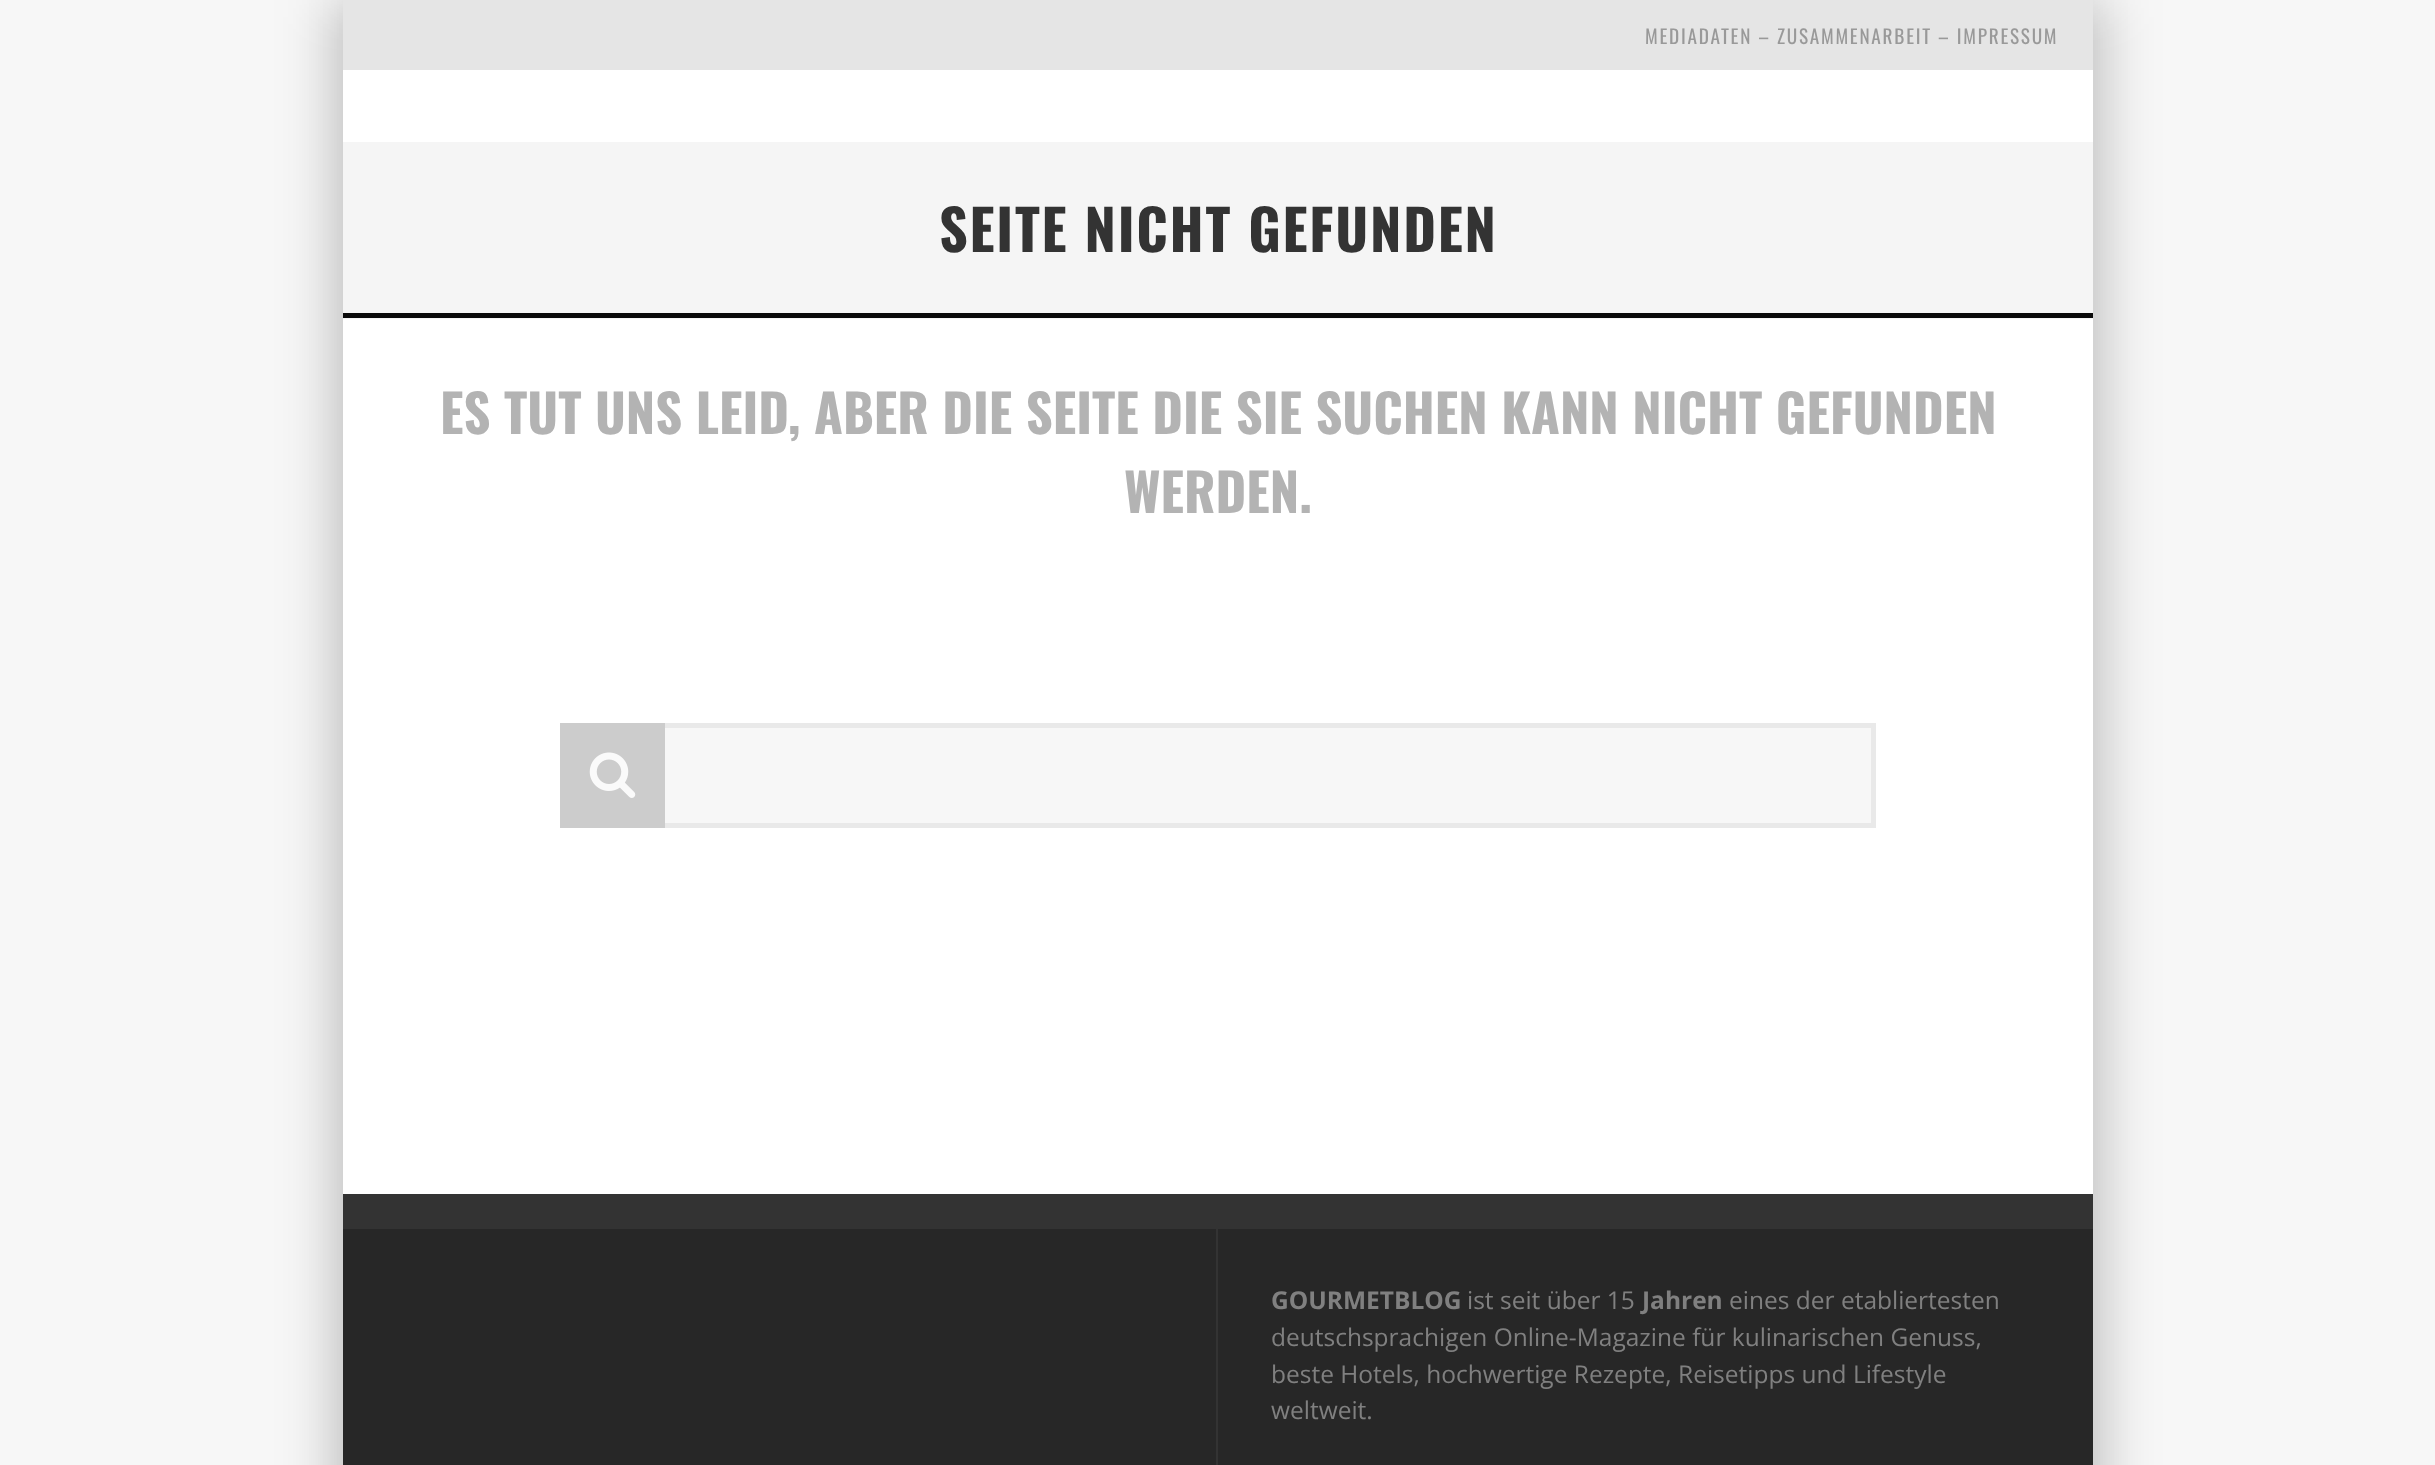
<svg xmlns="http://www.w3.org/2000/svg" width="2435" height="1465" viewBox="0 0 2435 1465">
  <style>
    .t1 { font: 19.25px Oswald; letter-spacing: 1.75px; fill: #999; }
    .t2 { font: bold 56px Oswald; letter-spacing: 1.75px; fill: #333; }
    .t3 { font: bold 52.5px Oswald; fill: #b3b3b3; }
    .t4 { font: bold 24.5px Open Sans; fill: #808080; }
    .t5 { font: 24.5px Open Sans; fill: #808080; }
  </style>
  <rect width="100%" height="100%" fill="#f7f7f7"/>
  <rect x="326" y="0" width="1750" height="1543" fill="#00000026" filter="blur(26px)"/>
  <rect x="361" y="0" width="1750" height="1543" fill="#00000026" filter="blur(26px)"/>
  <rect x="343" y="70" width="1750" height="72" fill="#fff"/>
  <rect x="343" y="0" width="1750" height="70" fill="#e5e5e5"/>
  <text x="1645" y="44" class="t1">MEDIADATEN – ZUSAMMENARBEIT – IMPRESSUM</text>
  <rect x="343" y="142" width="1750" height="177" fill="#f5f5f5"/>
  <rect x="343" y="313" width="1750" height="5" fill="#0a0a0a"/>
  <text x="939" y="252" class="t2">SEITE NICHT GEFUNDEN</text>
  <rect x="343" y="319" width="1750" height="875" fill="#fff"/>
  <text x="440" y="434" class="t3">ES TUT UNS LEID, ABER DIE SEITE DIE SIE SUCHEN KANN NICHT GEFUNDEN</text>
  <text x="1124" y="513" class="t3">WERDEN.</text>
  <rect x="665" y="728" width="1206" height="95" fill="#f7f7f7"/>
  <rect x="562.5" y="725.5" width="1311" height="100" fill="none" stroke="#e9e9e9" stroke-width="5"/>
  <rect x="560" y="723" width="105" height="105" fill="#ccc"/>
  <image x="589" y="752" width="47" height="46" href="images/1.png"/>
  <rect x="343" y="1229" width="1750" height="236" fill="#272727"/>
  <rect x="343" y="1194" width="1750" height="35" fill="#333"/>
  <rect x="1216" y="1229" width="2" height="236" fill="#333"/>
  <text x="1271" y="1309" class="t4">GOURMETBLOG</text>
  <text x="1467" y="1309" class="t5">ist seit über 15</text>
  <text x="1642" y="1309" class="t4">Jahren</text>
  <text x="1729" y="1309" class="t5">eines der etabliertesten</text>
  <text x="1271" y="1346" class="t5">deutschsprachigen Online-Magazine für kulinarischen Genuss,</text>
  <text x="1271" y="1383" class="t5">beste Hotels, hochwertige Rezepte, Reisetipps und Lifestyle</text>
  <text x="1271" y="1419" class="t5">weltweit.</text>
</svg>
